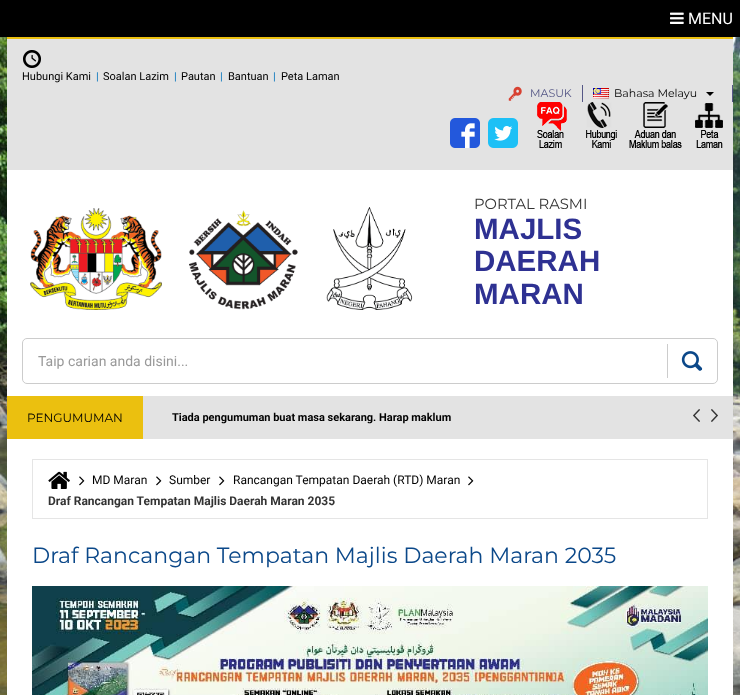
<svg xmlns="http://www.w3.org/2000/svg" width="740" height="695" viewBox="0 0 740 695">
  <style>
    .t1 { font: 16px Roboto; fill: #fff; }
    .t2 { font: 11px Roboto; fill: #000; }
    .t3 { font: 11px Roboto; fill: #0072bc; }
    .t4 { font: 11px Montserrat; fill: #555786; }
    .t5 { font: 11px Montserrat; fill: #000; }
    .t6 { font: 14.75px Montserrat; fill: #333; }
    .t7 { font: bold 29.5px Liberation Sans; fill: #2e3192; }
    .t8 { font: 14px Roboto; fill: #999; }
    .t9 { font: 12px Montserrat; fill: #000; }
    .t10 { font: bold 11px Roboto; fill: #000; }
    .t11 { font: 12px Roboto; fill: #000; }
    .t12 { font: bold 12px Roboto; fill: #333; }
    .t13 { font: 22px Montserrat; fill: #0b4889; }
  </style>
  <rect width="100%" height="100%" fill="#fff"/>
  <image x="0" y="37" width="740" height="658" href="images/1.png"/>
  <rect x="0" y="0" width="740" height="37" fill="#000"/>
  <image x="670" y="12" width="14" height="12" href="images/2.png"/>
  <text x="688" y="24" class="t1">MENU</text>
  <rect x="7" y="170" width="726" height="525" fill="#fff"/>
  <rect x="7" y="37" width="726" height="2" fill="#ebc00f"/>
  <rect x="7" y="39" width="726" height="131" fill="#e3e3e3"/>
  <image x="23" y="50" width="18" height="18" href="images/3.png"/>
  <text x="22" y="80" class="t2">Hubungi Kami</text>
  <text x="96" y="80" class="t3">|</text>
  <text x="103" y="80" class="t2">Soalan Lazim</text>
  <text x="174" y="80" class="t3">|</text>
  <text x="181" y="80" class="t2">Pautan</text>
  <text x="220" y="80" class="t3">|</text>
  <text x="228" y="80" class="t2">Bantuan</text>
  <text x="273" y="80" class="t3">|</text>
  <text x="281" y="80" class="t2">Peta Laman</text>
  <rect x="582" y="85" width="1" height="17" fill="#555786"/>
  <image x="508" y="86" width="14" height="15" href="images/4.png"/>
  <text x="530" y="97" class="t4">MASUK</text>
  <rect x="732" y="85" width="1" height="17" fill="#555786"/>
  <image x="593" y="88" width="16" height="11" href="images/5.png"/>
  <text x="614" y="97" class="t5">Bahasa Melayu</text>
  <path d="M706 92H714L710 96Z" fill="#000"/>
  <image x="450" y="118" width="30" height="30" href="images/6.png"/>
  <image x="488" y="118" width="30" height="30" href="images/7.png"/>
  <image x="537" y="102" width="30" height="46" href="images/8.png"/>
  <image x="586" y="102" width="31" height="46" href="images/9.png"/>
  <image x="629" y="102" width="53" height="46" href="images/10.png"/>
  <image x="695" y="103" width="28" height="45" href="images/11.png"/>
  <image x="30" y="208" width="132" height="102" href="images/12.png"/>
  <image x="189" y="210" width="109" height="100" href="images/13.png"/>
  <image x="326" y="207" width="87" height="103" href="images/14.png"/>
  <text x="474" y="209" class="t6">PORTAL RASMI</text>
  <text x="474" y="239" class="t7">MAJLIS</text>
  <text x="474" y="271" class="t7">DAERAH</text>
  <text x="474" y="304" class="t7">MARAN</text>
  <rect x="22.5" y="338.5" width="695" height="45" rx="4.5" fill="none" stroke="#ccc"/>
  <rect x="667" y="344" width="1" height="34" fill="#ccc"/>
  <text x="38" y="366" class="t8">Taip carian anda disini...</text>
  <image x="681" y="351" width="22" height="20" href="images/15.png"/>
  <rect x="143" y="396" width="590" height="43" fill="#e3e3e3"/>
  <rect x="7" y="396" width="136" height="43" fill="#ebc00f"/>
  <text x="27" y="422" class="t9">PENGUMUMAN</text>
  <text x="172" y="421" class="t10">Tiada pengumuman buat masa sekarang. Harap maklum</text>
  <image x="693" y="409" width="7" height="13" href="images/16.png"/>
  <image x="711" y="409" width="7" height="13" href="images/17.png"/>
  <rect x="32.5" y="459.5" width="675" height="59" fill="none" stroke="#e5e5e5"/>
  <image x="48" y="471" width="22" height="18" href="images/18.png"/>
  <image x="79" y="476" width="6" height="10" href="images/19.png"/>
  <text x="92" y="484" class="t11">MD Maran</text>
  <image x="156" y="476" width="6" height="10" href="images/19.png"/>
  <text x="169" y="484" class="t11">Sumber</text>
  <image x="219" y="476" width="6" height="10" href="images/19.png"/>
  <text x="233" y="484" class="t11">Rancangan Tempatan Daerah (RTD) Maran</text>
  <image x="468" y="476" width="6" height="10" href="images/19.png"/>
  <text x="48" y="505" class="t12">Draf Rancangan Tempatan Majlis Daerah Maran 2035</text>
  <text x="32" y="563" class="t13">Draf Rancangan Tempatan Majlis Daerah Maran 2035</text>
  <image x="32" y="586" width="676" height="109" href="images/20.png"/>
</svg>
